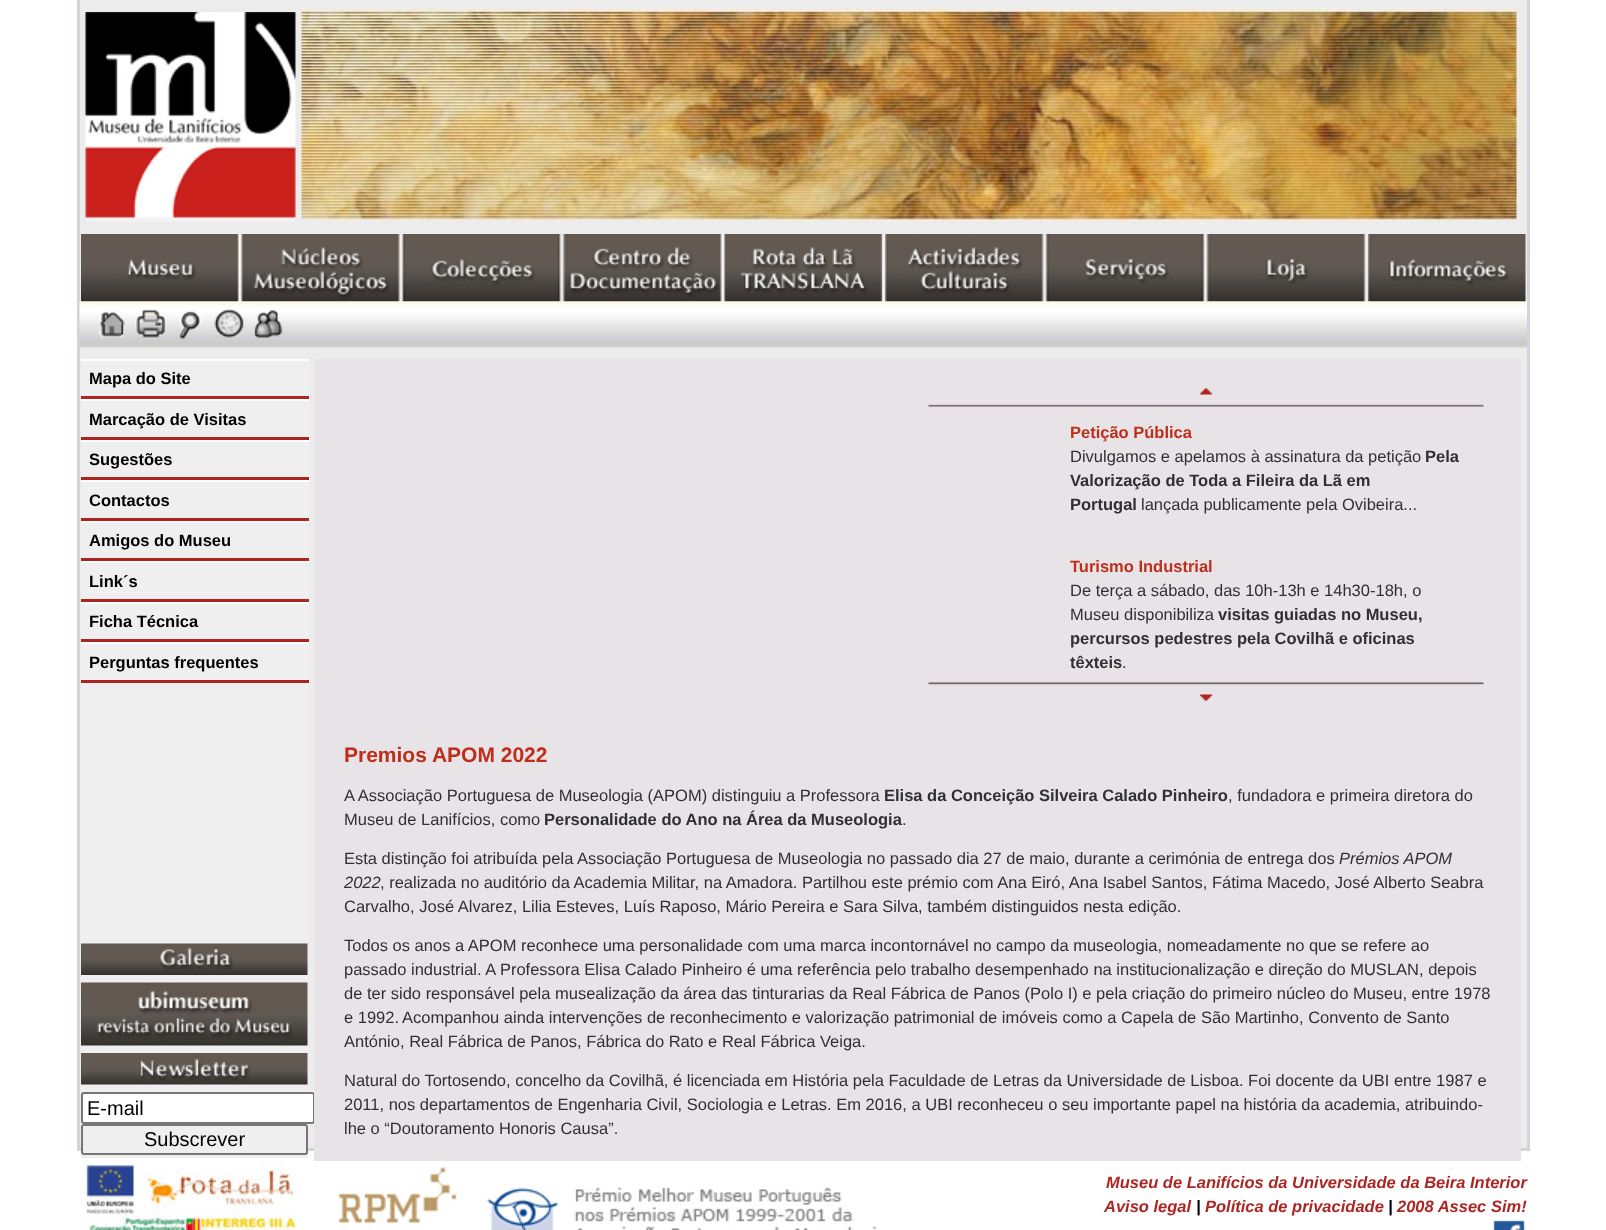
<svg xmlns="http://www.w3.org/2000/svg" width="1606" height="1230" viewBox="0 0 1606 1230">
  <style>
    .t1 { font: bold 16.5px Liberation Sans; fill: #000; }
    .t2 { font: 20px Liberation Sans; fill: #000; }
    .t3 { font: bold 16.5px Liberation Sans; fill: #bf2e1a; }
    .t4 { font: 16.5px Liberation Sans; fill: #303030; }
    .t5 { font: bold 16.5px Liberation Sans; fill: #303030; }
    .t6 { font: bold 21px Liberation Sans; fill: #bf2e1a; }
    .t7 { font: italic 16.5px Liberation Sans; fill: #303030; }
    .t8 { font: italic bold 16.5px Liberation Sans; fill: #ad2623; }
    .t9 { font: italic bold 16.5px Liberation Sans; fill: #000; }
  </style>
  <rect width="100%" height="100%" fill="#fff"/>
  <rect x="78.5" y="-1.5" width="1450" height="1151" fill="#ececec" stroke="#d1d5d9" stroke-width="3"/>
  <image x="85" y="12" width="211" height="210" href="images/1.png"/>
  <image x="301" y="7" width="1216" height="217" href="images/2.png"/>
  <image x="81" y="234" width="1445" height="68" href="images/3.png"/>
  <image x="79" y="301" width="1448" height="47" href="images/4.png"/>
  <image x="98" y="311" width="27" height="27" href="images/5.png"/>
  <image x="135" y="309" width="32" height="30" href="images/6.png"/>
  <image x="179" y="311" width="22" height="29" href="images/7.png"/>
  <image x="214" y="308" width="30" height="31" href="images/8.png"/>
  <image x="254" y="310" width="29" height="28" href="images/9.png"/>
  <rect x="81" y="683" width="227" height="475" fill="#efefef"/>
  <rect x="81" y="361" width="228" height="35" fill="#efefef"/>
  <rect x="81" y="359" width="228" height="2" fill="#fff"/>
  <rect x="81" y="396" width="228" height="3" fill="#ad2421"/>
  <text x="89" y="384" class="t1">Mapa do Site</text>
  <rect x="81" y="401" width="228" height="36" fill="#efefef"/>
  <rect x="81" y="399" width="228" height="2" fill="#fff"/>
  <rect x="81" y="437" width="228" height="3" fill="#ad2421"/>
  <text x="89" y="425" class="t1">Marcação de Visitas</text>
  <rect x="81" y="442" width="228" height="35" fill="#efefef"/>
  <rect x="81" y="440" width="228" height="2" fill="#fff"/>
  <rect x="81" y="477" width="228" height="3" fill="#ad2421"/>
  <text x="89" y="465" class="t1">Sugestões</text>
  <rect x="81" y="482" width="228" height="36" fill="#efefef"/>
  <rect x="81" y="480" width="228" height="2" fill="#fff"/>
  <rect x="81" y="518" width="228" height="3" fill="#ad2421"/>
  <text x="89" y="506" class="t1">Contactos</text>
  <rect x="81" y="523" width="228" height="35" fill="#efefef"/>
  <rect x="81" y="521" width="228" height="2" fill="#fff"/>
  <rect x="81" y="558" width="228" height="3" fill="#ad2421"/>
  <text x="89" y="546" class="t1">Amigos do Museu</text>
  <rect x="81" y="563" width="228" height="36" fill="#efefef"/>
  <rect x="81" y="561" width="228" height="2" fill="#fff"/>
  <rect x="81" y="599" width="228" height="3" fill="#ad2421"/>
  <text x="89" y="587" class="t1">Link´s</text>
  <rect x="81" y="604" width="228" height="35" fill="#efefef"/>
  <rect x="81" y="602" width="228" height="2" fill="#fff"/>
  <rect x="81" y="639" width="228" height="3" fill="#ad2421"/>
  <text x="89" y="627" class="t1">Ficha Técnica</text>
  <rect x="81" y="644" width="228" height="36" fill="#efefef"/>
  <rect x="81" y="642" width="228" height="2" fill="#fff"/>
  <rect x="81" y="680" width="228" height="3" fill="#ad2421"/>
  <text x="89" y="668" class="t1">Perguntas frequentes</text>
  <image x="81" y="943" width="227" height="32" href="images/10.png"/>
  <image x="81" y="982" width="227" height="64" href="images/11.png"/>
  <image x="81" y="1053" width="227" height="32" href="images/12.png"/>
  <rect x="82" y="1093" width="232" height="30" rx="2" fill="#fff" stroke="#767676" stroke-width="2"/>
  <text x="87" y="1115" class="t2">E-mail</text>
  <rect x="82" y="1125" width="225" height="29" rx="2" fill="none" stroke="#767676" stroke-width="2"/>
  <text x="144" y="1146" class="t2">Subscrever</text>
  <rect x="314" y="359" width="1207" height="802" fill="#e7e3e7"/>
  <image x="928" y="388" width="556" height="19" href="images/13.png"/>
  <text x="1070" y="438" class="t3">Petição Pública</text>
  <text x="1070" y="462" class="t4">Divulgamos e apelamos à assinatura da petição</text>
  <text x="1425" y="462" class="t5">Pela</text>
  <text x="1070" y="486" class="t5">Valorização de Toda a Fileira da Lã em</text>
  <text x="1070" y="510" class="t5">Portugal</text>
  <text x="1141" y="510" class="t4">lançada publicamente pela Ovibeira...</text>
  <text x="1070" y="572" class="t3">Turismo Industrial</text>
  <text x="1070" y="596" class="t4">De terça a sábado, das 10h-13h e 14h30-18h, o</text>
  <text x="1070" y="620" class="t4">Museu disponibiliza</text>
  <text x="1218" y="620" class="t5">visitas guiadas no Museu,</text>
  <text x="1070" y="644" class="t5">percursos pedestres pela Covilhã e oficinas</text>
  <text x="1070" y="668" class="t5">têxteis</text>
  <text x="1122" y="668" class="t4">.</text>
  <image x="928" y="682" width="556" height="19" href="images/14.png"/>
  <text x="344" y="762" class="t6">Premios APOM 2022</text>
  <text x="344" y="801" class="t4">A Associação Portuguesa de Museologia (APOM) distinguiu a Professora</text>
  <text x="884" y="801" class="t5">Elisa da Conceição Silveira Calado Pinheiro</text>
  <text x="1228" y="801" class="t4">, fundadora e primeira diretora do</text>
  <text x="344" y="825" class="t4">Museu de Lanifícios, como</text>
  <text x="544" y="825" class="t5">Personalidade do Ano na Área da Museologia</text>
  <text x="902" y="825" class="t4">.</text>
  <text x="344" y="864" class="t4">Esta distinção foi atribuída pela Associação Portuguesa de Museologia no passado dia 27 de maio, durante a cerimónia de entrega dos</text>
  <text x="1339" y="864" class="t7">Prémios APOM</text>
  <text x="344" y="888" class="t7">2022</text>
  <text x="380" y="888" class="t4">, realizada no auditório da Academia Militar, na Amadora. Partilhou este prémio com Ana Eiró, Ana Isabel Santos, Fátima Macedo, José Alberto Seabra</text>
  <text x="344" y="912" class="t4">Carvalho, José Alvarez, Lilia Esteves, Luís Raposo, Mário Pereira e Sara Silva, também distinguidos nesta edição.</text>
  <text x="344" y="951" class="t4">Todos os anos a APOM reconhece uma personalidade com uma marca incontornável no campo da museologia, nomeadamente no que se refere ao</text>
  <text x="344" y="975" class="t4">passado industrial. A Professora Elisa Calado Pinheiro é uma referência pelo trabalho desempenhado na institucionalização e direção do MUSLAN, depois</text>
  <text x="344" y="999" class="t4">de ter sido responsável pela musealização da área das tinturarias da Real Fábrica de Panos (Polo I) e pela criação do primeiro núcleo do Museu, entre 1978</text>
  <text x="344" y="1023" class="t4">e 1992.</text>
  <text x="402" y="1023" class="t4">Acompanhou ainda intervenções de reconhecimento e valorização patrimonial de imóveis como a Capela de São Martinho, Convento de Santo</text>
  <text x="344" y="1047" class="t4">António, Real Fábrica de Panos, Fábrica do Rato e Real Fábrica Veiga.</text>
  <text x="344" y="1086" class="t4">Natural do Tortosendo, concelho da Covilhã, é licenciada em História pela Faculdade de Letras da Universidade de Lisboa. Foi docente da UBI entre 1987 e</text>
  <text x="344" y="1110" class="t4">2011, nos departamentos de Engenharia Civil, Sociologia e Letras. Em 2016, a UBI reconheceu o seu importante papel na história da academia, atribuindo-</text>
  <text x="344" y="1134" class="t4">lhe o “Doutoramento Honoris Causa”.</text>
  <image x="79" y="1161" width="217" height="69" href="images/15.png"/>
  <image x="338" y="1166" width="539" height="64" href="images/16.png"/>
  <text x="1106" y="1188" class="t8">Museu de Lanifícios da Universidade da Beira Interior</text>
  <text x="1104" y="1212" class="t8">Aviso legal</text>
  <text x="1196" y="1212" class="t9">|</text>
  <text x="1205" y="1212" class="t8">Política de privacidade</text>
  <text x="1388" y="1212" class="t9">|</text>
  <text x="1397" y="1212" class="t8">2008 Assec Sim!</text>
  <image x="1493" y="1220" width="32" height="10" href="images/17.png"/>
</svg>
